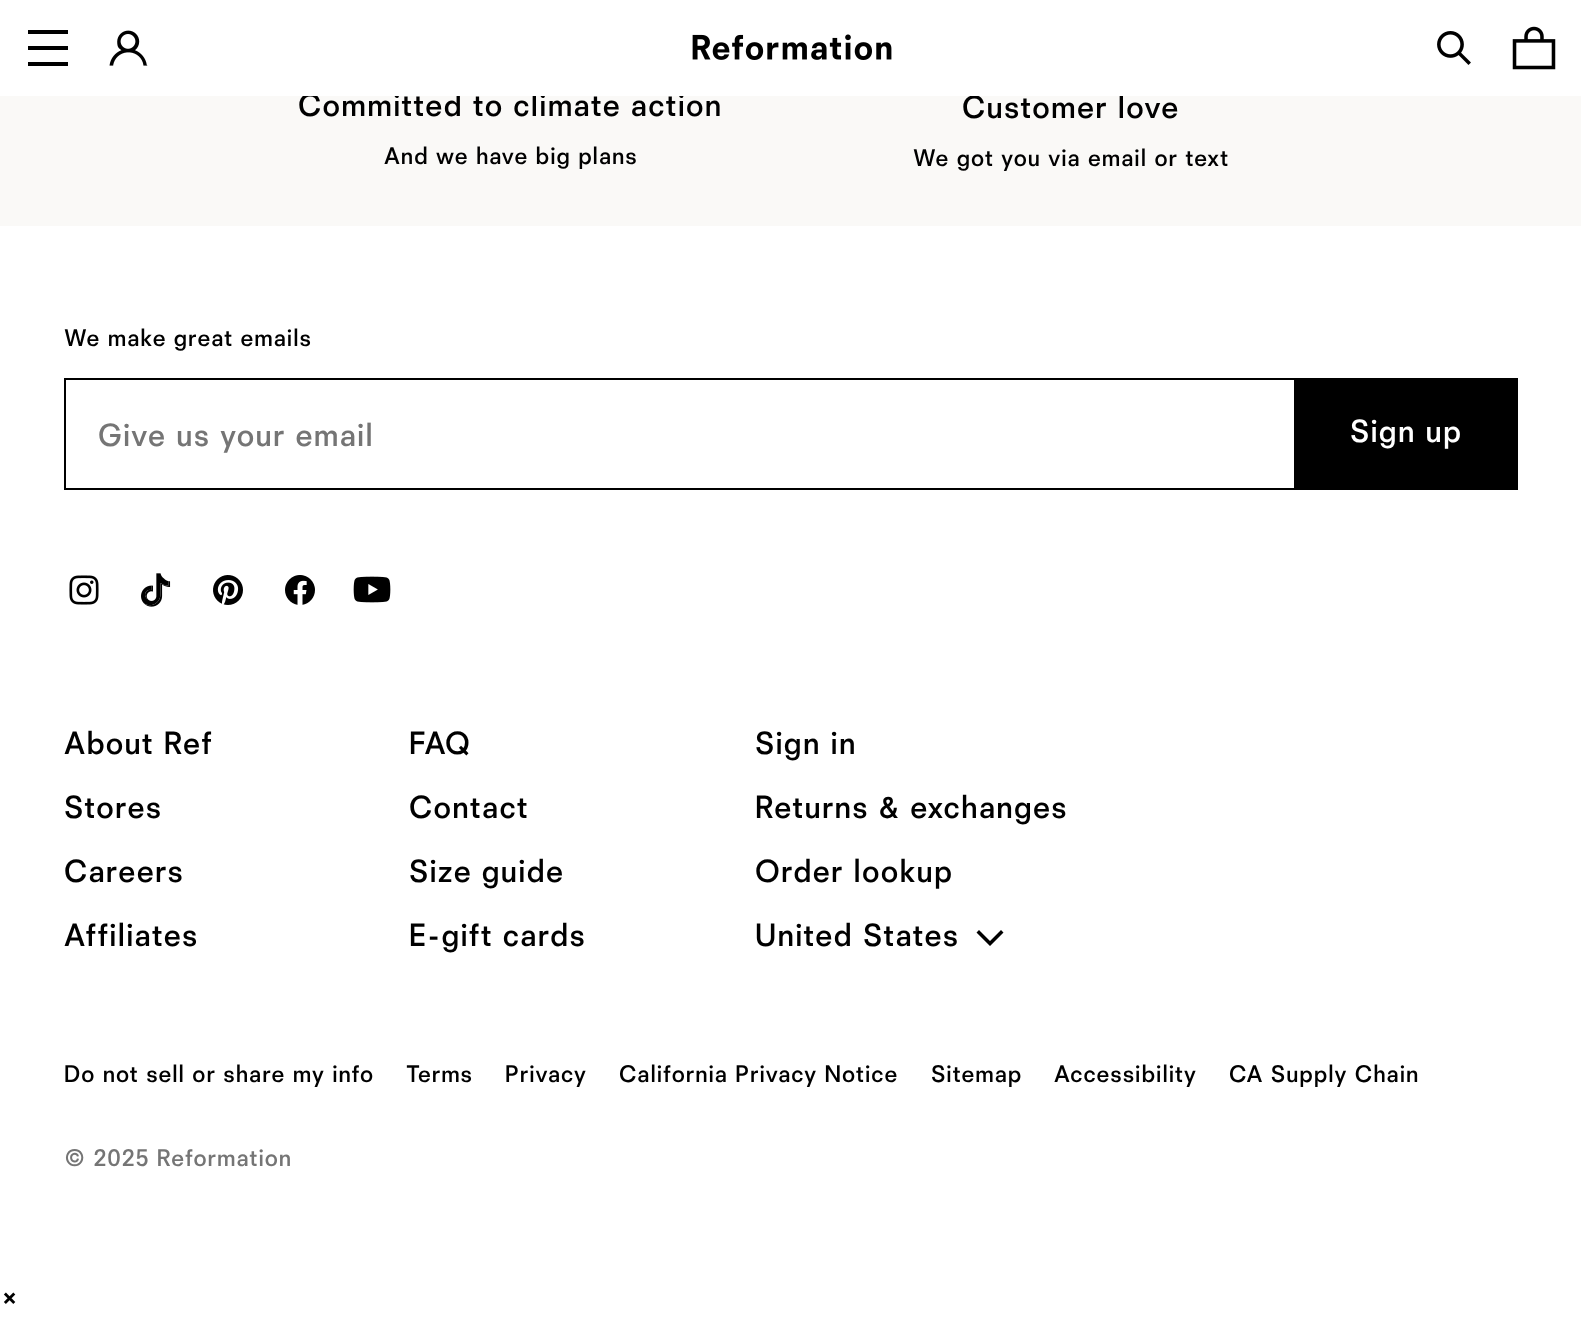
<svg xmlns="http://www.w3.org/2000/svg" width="1581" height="1320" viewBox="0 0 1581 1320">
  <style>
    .t1 { font: 500 32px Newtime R; letter-spacing: 1.25px; fill: #000; }
    .t2 { font: 500 24px Newtime R; letter-spacing: 0.95px; fill: #000; }
    .t3 { font: 500 32px Newtime R; letter-spacing: 1.25px; fill: #757575; }
    .t4 { font: 500 32px Newtime R; letter-spacing: 1.25px; fill: #fff; }
    .t5 { font: 500 24px Newtime R; letter-spacing: 0.95px; fill: #757575; }
  </style>
  <rect width="100%" height="100%" fill="#fff"/>
  <rect x="0" y="96" width="1581" height="130" fill="#faf9f7"/>
  <text x="298" y="116" class="t1">Committed to climate action</text>
  <text x="962" y="118" class="t1">Customer love</text>
  <rect x="303" y="92" width="821" height="4" fill="#fff"/>
  <rect x="28" y="30" width="40" height="4" fill="#000"/>
  <rect x="28" y="46" width="40" height="4" fill="#000"/>
  <rect x="28" y="62" width="40" height="4" fill="#000"/>
  <image x="109" y="30" width="39" height="36" href="images/1.png"/>
  <image x="692" y="34" width="200" height="26" href="images/2.png"/>
  <image x="1437" y="31" width="34" height="34" href="images/3.png"/>
  <image x="1512" y="26" width="44" height="44" href="images/4.png"/>
  <text x="384" y="164" class="t2">And we have big plans</text>
  <text x="913" y="166" class="t2">We got you via email or text</text>
  <text x="64" y="346" class="t2">We make great emails</text>
  <rect x="64" y="378" width="1230" height="2" fill="#000"/>
  <rect x="64" y="488" width="1230" height="2" fill="#000"/>
  <rect x="64" y="378" width="2" height="112" fill="#000"/>
  <text x="98" y="446" class="t3">Give us your email</text>
  <rect x="1294" y="378" width="224" height="112" fill="#000"/>
  <text x="1350" y="442" class="t4">Sign up</text>
  <image x="69" y="575" width="30" height="30" href="images/5.png"/>
  <image x="141" y="573" width="30" height="34" href="images/6.png"/>
  <image x="213" y="575" width="30" height="30" href="images/7.png"/>
  <image x="285" y="575" width="30" height="30" href="images/8.png"/>
  <image x="353" y="576" width="38" height="27" href="images/9.png"/>
  <text x="64" y="754" class="t1">About Ref</text>
  <text x="64" y="818" class="t1">Stores</text>
  <text x="64" y="882" class="t1">Careers</text>
  <text x="64" y="946" class="t1">Affiliates</text>
  <text x="409" y="754" class="t1">FAQ</text>
  <text x="409" y="818" class="t1">Contact</text>
  <text x="409" y="882" class="t1">Size guide</text>
  <text x="409" y="946" class="t1">E-gift cards</text>
  <text x="755" y="754" class="t1">Sign in</text>
  <text x="755" y="818" class="t1">Returns &amp; exchanges</text>
  <text x="755" y="882" class="t1">Order lookup</text>
  <text x="755" y="946" class="t1">United States</text>
  <path d="M990 946L976.5 932.5L979 930L990 941L1001 930L1003.5 932.5Z" fill="#000"/>
  <text x="64" y="1082" class="t2">Do not sell or share my info</text>
  <text x="406" y="1082" class="t2">Terms</text>
  <text x="505" y="1082" class="t2">Privacy</text>
  <text x="619" y="1082" class="t2">California Privacy Notice</text>
  <text x="931" y="1082" class="t2">Sitemap</text>
  <text x="1054" y="1082" class="t2">Accessibility</text>
  <text x="1229" y="1082" class="t2">CA Supply Chain</text>
  <text x="64" y="1166" class="t5">© 2025 Reformation</text>
  <text x="0" y="1306" class="t1">×</text>
</svg>
